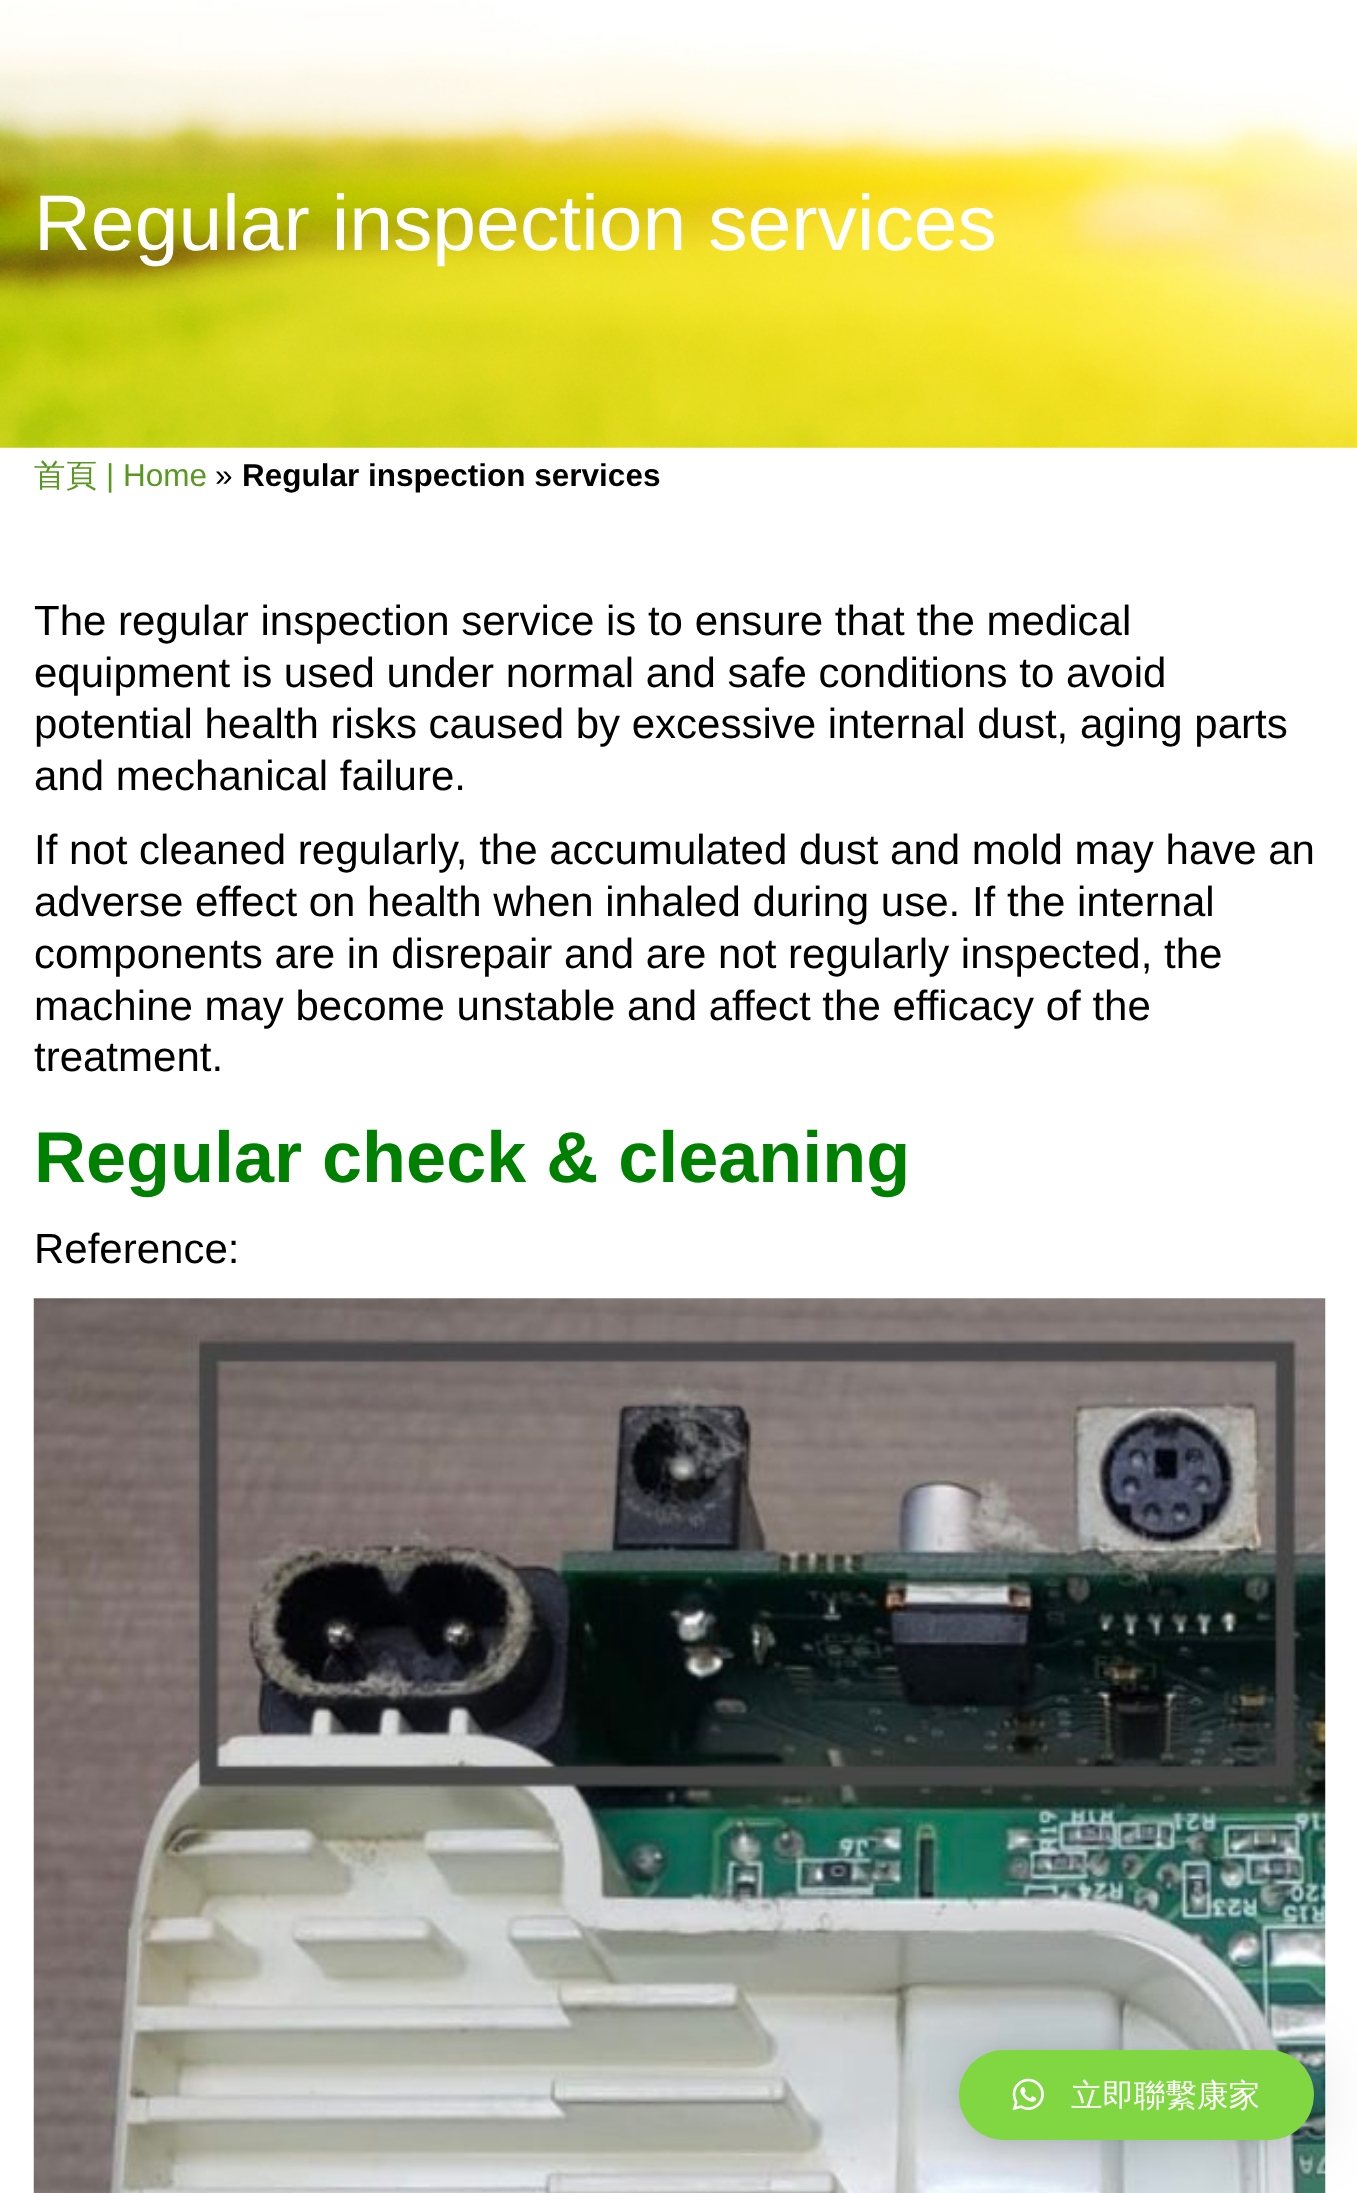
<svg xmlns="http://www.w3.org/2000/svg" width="1357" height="2193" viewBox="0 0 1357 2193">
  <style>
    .t1 { font: 78.75px Liberation Sans; fill: #fff; }
    .t2 { font: 500 31.5px WenQuanYi Zen Hei; fill: #589820; }
    .t3 { font: 31.5px Liberation Sans; fill: #589820; }
    .t4 { font: 31.5px Liberation Sans; fill: #000; }
    .t5 { font: bold 31.5px Liberation Sans; fill: #000; }
    .t6 { font: 42px Liberation Sans; fill: #000; }
    .t7 { font: bold 72px Liberation Sans; fill: #008000; }
    .t8 { font: 500 31.5px WenQuanYi Zen Hei; fill: #fff; }
  </style>
  <rect width="100%" height="100%" fill="#fff"/>
  <image x="0" y="0" width="1357" height="448" href="images/1.png"/>
  <text x="34" y="250" class="t1">Regular inspection services</text>
  <text x="34" y="486" class="t2">首頁</text>
  <text x="106" y="486" class="t3">| Home</text>
  <text x="215" y="486" class="t4">»</text>
  <text x="242" y="486" class="t5">Regular inspection services</text>
  <text x="34" y="635" class="t6">The regular inspection service is to ensure that the medical</text>
  <text x="34" y="687" class="t6">equipment is used under normal and safe conditions to avoid</text>
  <text x="34" y="738" class="t6">potential health risks caused by excessive internal dust, aging parts</text>
  <text x="34" y="790" class="t6">and mechanical failure.</text>
  <text x="34" y="864" class="t6">If not cleaned regularly, the accumulated dust and mold may have an</text>
  <text x="34" y="916" class="t6">adverse effect on health when inhaled during use. If the internal</text>
  <text x="34" y="968" class="t6">components are in disrepair and are not regularly inspected, the</text>
  <text x="34" y="1020" class="t6">machine may become unstable and affect the efficacy of the</text>
  <text x="34" y="1071" class="t6">treatment.</text>
  <text x="34" y="1182" class="t7">Regular check &amp; cleaning</text>
  <text x="34" y="1263" class="t6">Reference:</text>
  <image x="33" y="1298" width="1293" height="895" href="images/2.png"/>
  <rect x="959" y="2054" width="355" height="90" rx="45" fill="#00000029" filter="blur(36px)"/>
  <rect x="959" y="2052" width="355" height="90" rx="45" fill="#0000000f" filter="blur(7px)"/>
  <rect x="959" y="2050" width="355" height="90" rx="45" fill="#81d742"/>
  <image x="1012" y="2078" width="32" height="33" href="images/3.png"/>
  <text x="1071" y="2106" class="t8">立即聯繫康家</text>
</svg>
